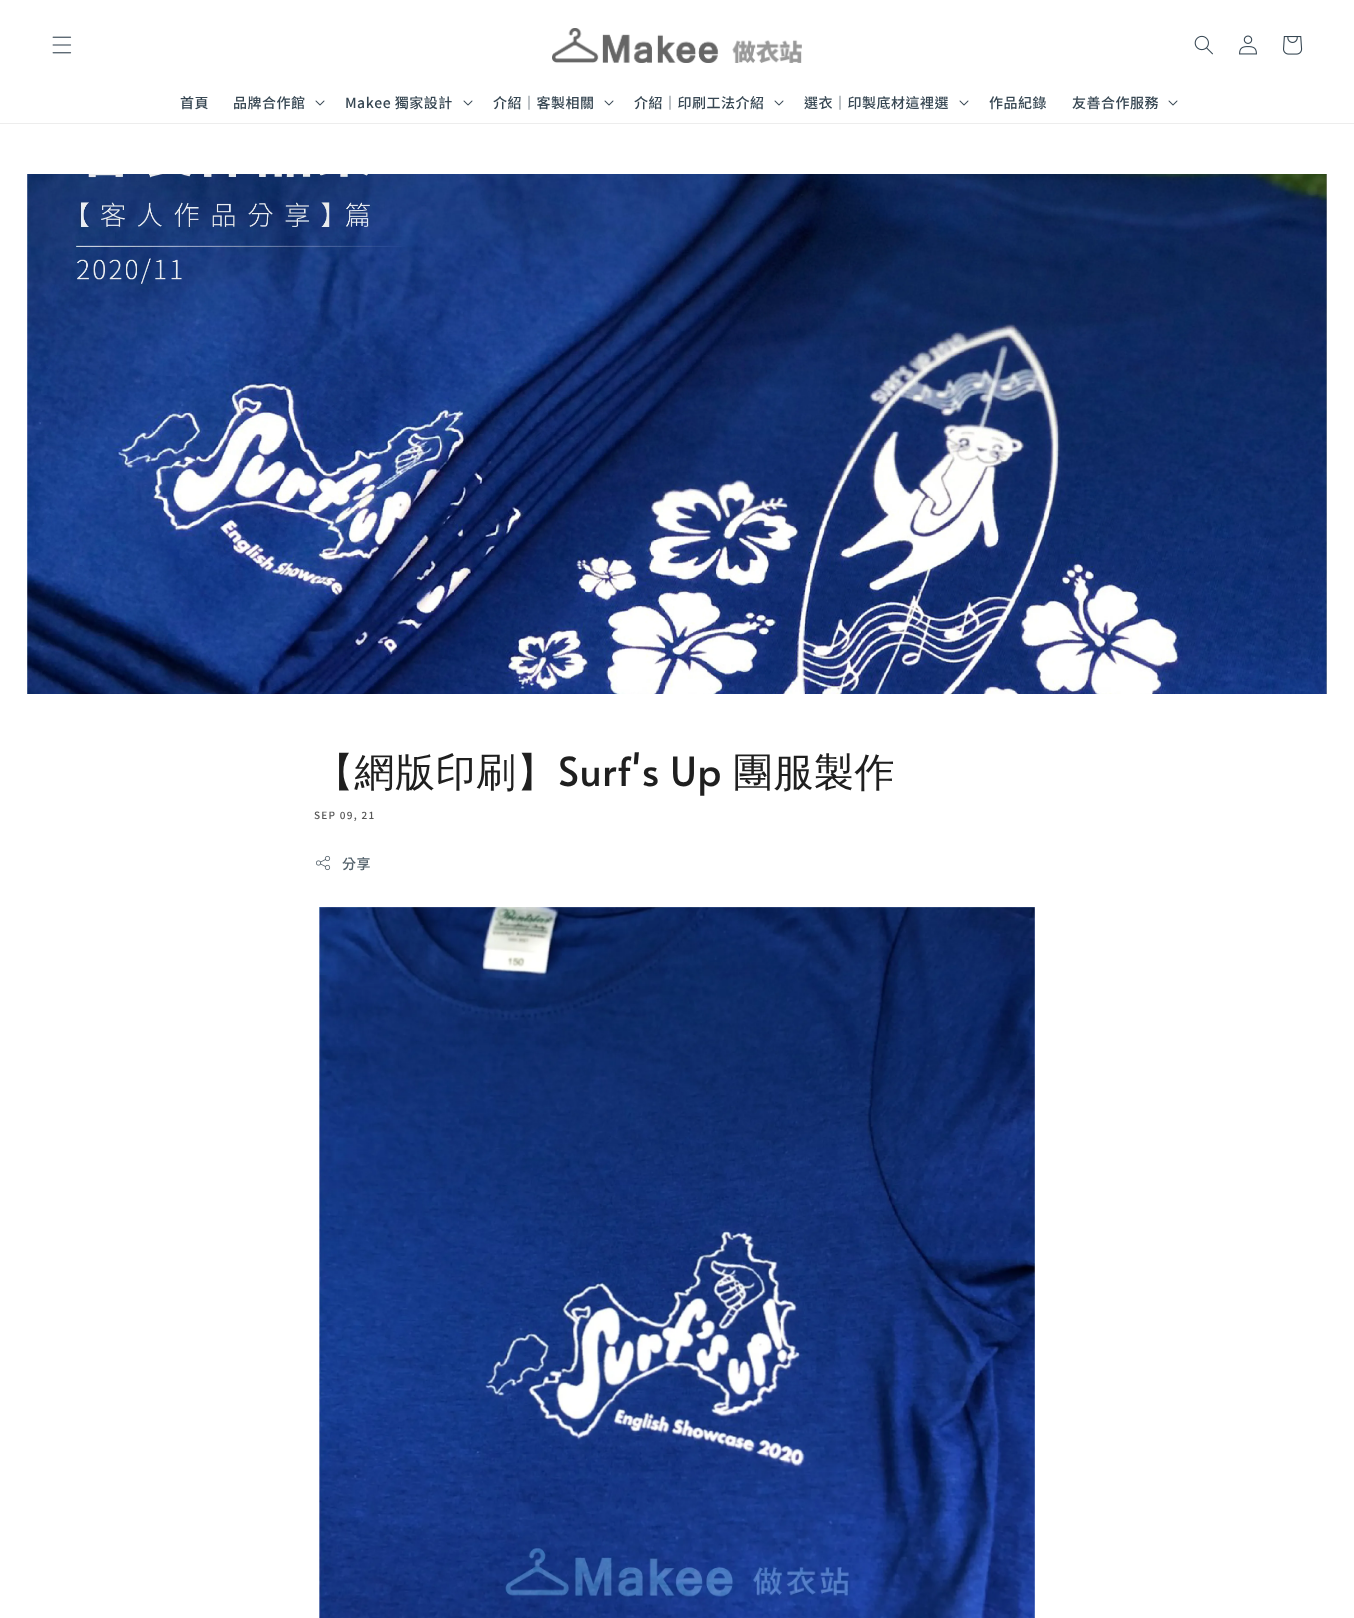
<svg xmlns="http://www.w3.org/2000/svg" width="1354" height="1618" viewBox="0 0 1354 1618">
  <style>*{font-kerning:none!important;font-variant-ligatures:none!important}</style>
  <style>
    .t1 { font: 500 14px Noto Sans TC; letter-spacing: 0.5px; fill: #364652; }
    .t2 { font: 500 40px WenQuanYi Zen Hei; letter-spacing: 0.5px; fill: #1f1f1f; }
    .t3 { font: 40px Alata; letter-spacing: 0.5px; fill: #1f1f1f; }
    .t4 { font: 500 10px Noto Sans TC; letter-spacing: 1.25px; fill: #575757; }
    .t5 { font: 500 14px Noto Sans TC; letter-spacing: 0.5px; fill: #54626c; }
  </style>
  <rect width="100%" height="100%" fill="#fff"/>
  <rect x="0" y="123" width="1354" height="1" fill="#ededed"/>
  <image x="52" y="36" width="20" height="18" href="images/1.png"/>
  <image x="552" y="28" width="250" height="35" href="images/2.png"/>
  <image x="1194" y="35" width="19" height="20" href="images/3.png"/>
  <image x="1239" y="35" width="18" height="20" href="images/4.png"/>
  <image x="1283" y="36" width="20" height="19" href="images/5.png"/>
  <text x="180" y="108" class="t1">首頁</text>
  <text x="233" y="108" class="t1">品牌合作館</text>
  <image x="315" y="100" width="10" height="6" href="images/6.png"/>
  <text x="345" y="108" class="t1">Makee 獨家設計</text>
  <image x="463" y="100" width="10" height="6" href="images/6.png"/>
  <text x="493" y="108" class="t1">介紹｜客製相關</text>
  <image x="604" y="100" width="10" height="6" href="images/6.png"/>
  <text x="634" y="108" class="t1">介紹｜印刷工法介紹</text>
  <image x="774" y="100" width="10" height="6" href="images/6.png"/>
  <text x="804" y="108" class="t1">選衣｜印製底材這裡選</text>
  <image x="959" y="100" width="10" height="6" href="images/6.png"/>
  <text x="989" y="108" class="t1">作品紀錄</text>
  <text x="1072" y="108" class="t1">友善合作服務</text>
  <image x="1168" y="100" width="10" height="6" href="images/6.png"/>
  <image x="27" y="174" width="1300" height="520" href="images/7.png"/>
  <text x="314" y="786" class="t2">【網版印刷】</text>
  <text x="558" y="786" class="t3">Surf's Up</text>
  <text x="733" y="786" class="t2">團服製作</text>
  <text x="314" y="819" class="t4">SEP 09, 21</text>
  <image x="316" y="855" width="15" height="16" href="images/8.png"/>
  <text x="342" y="869" class="t5">分享</text>
  <image x="319" y="907" width="716" height="711" href="images/9.png"/>
</svg>
